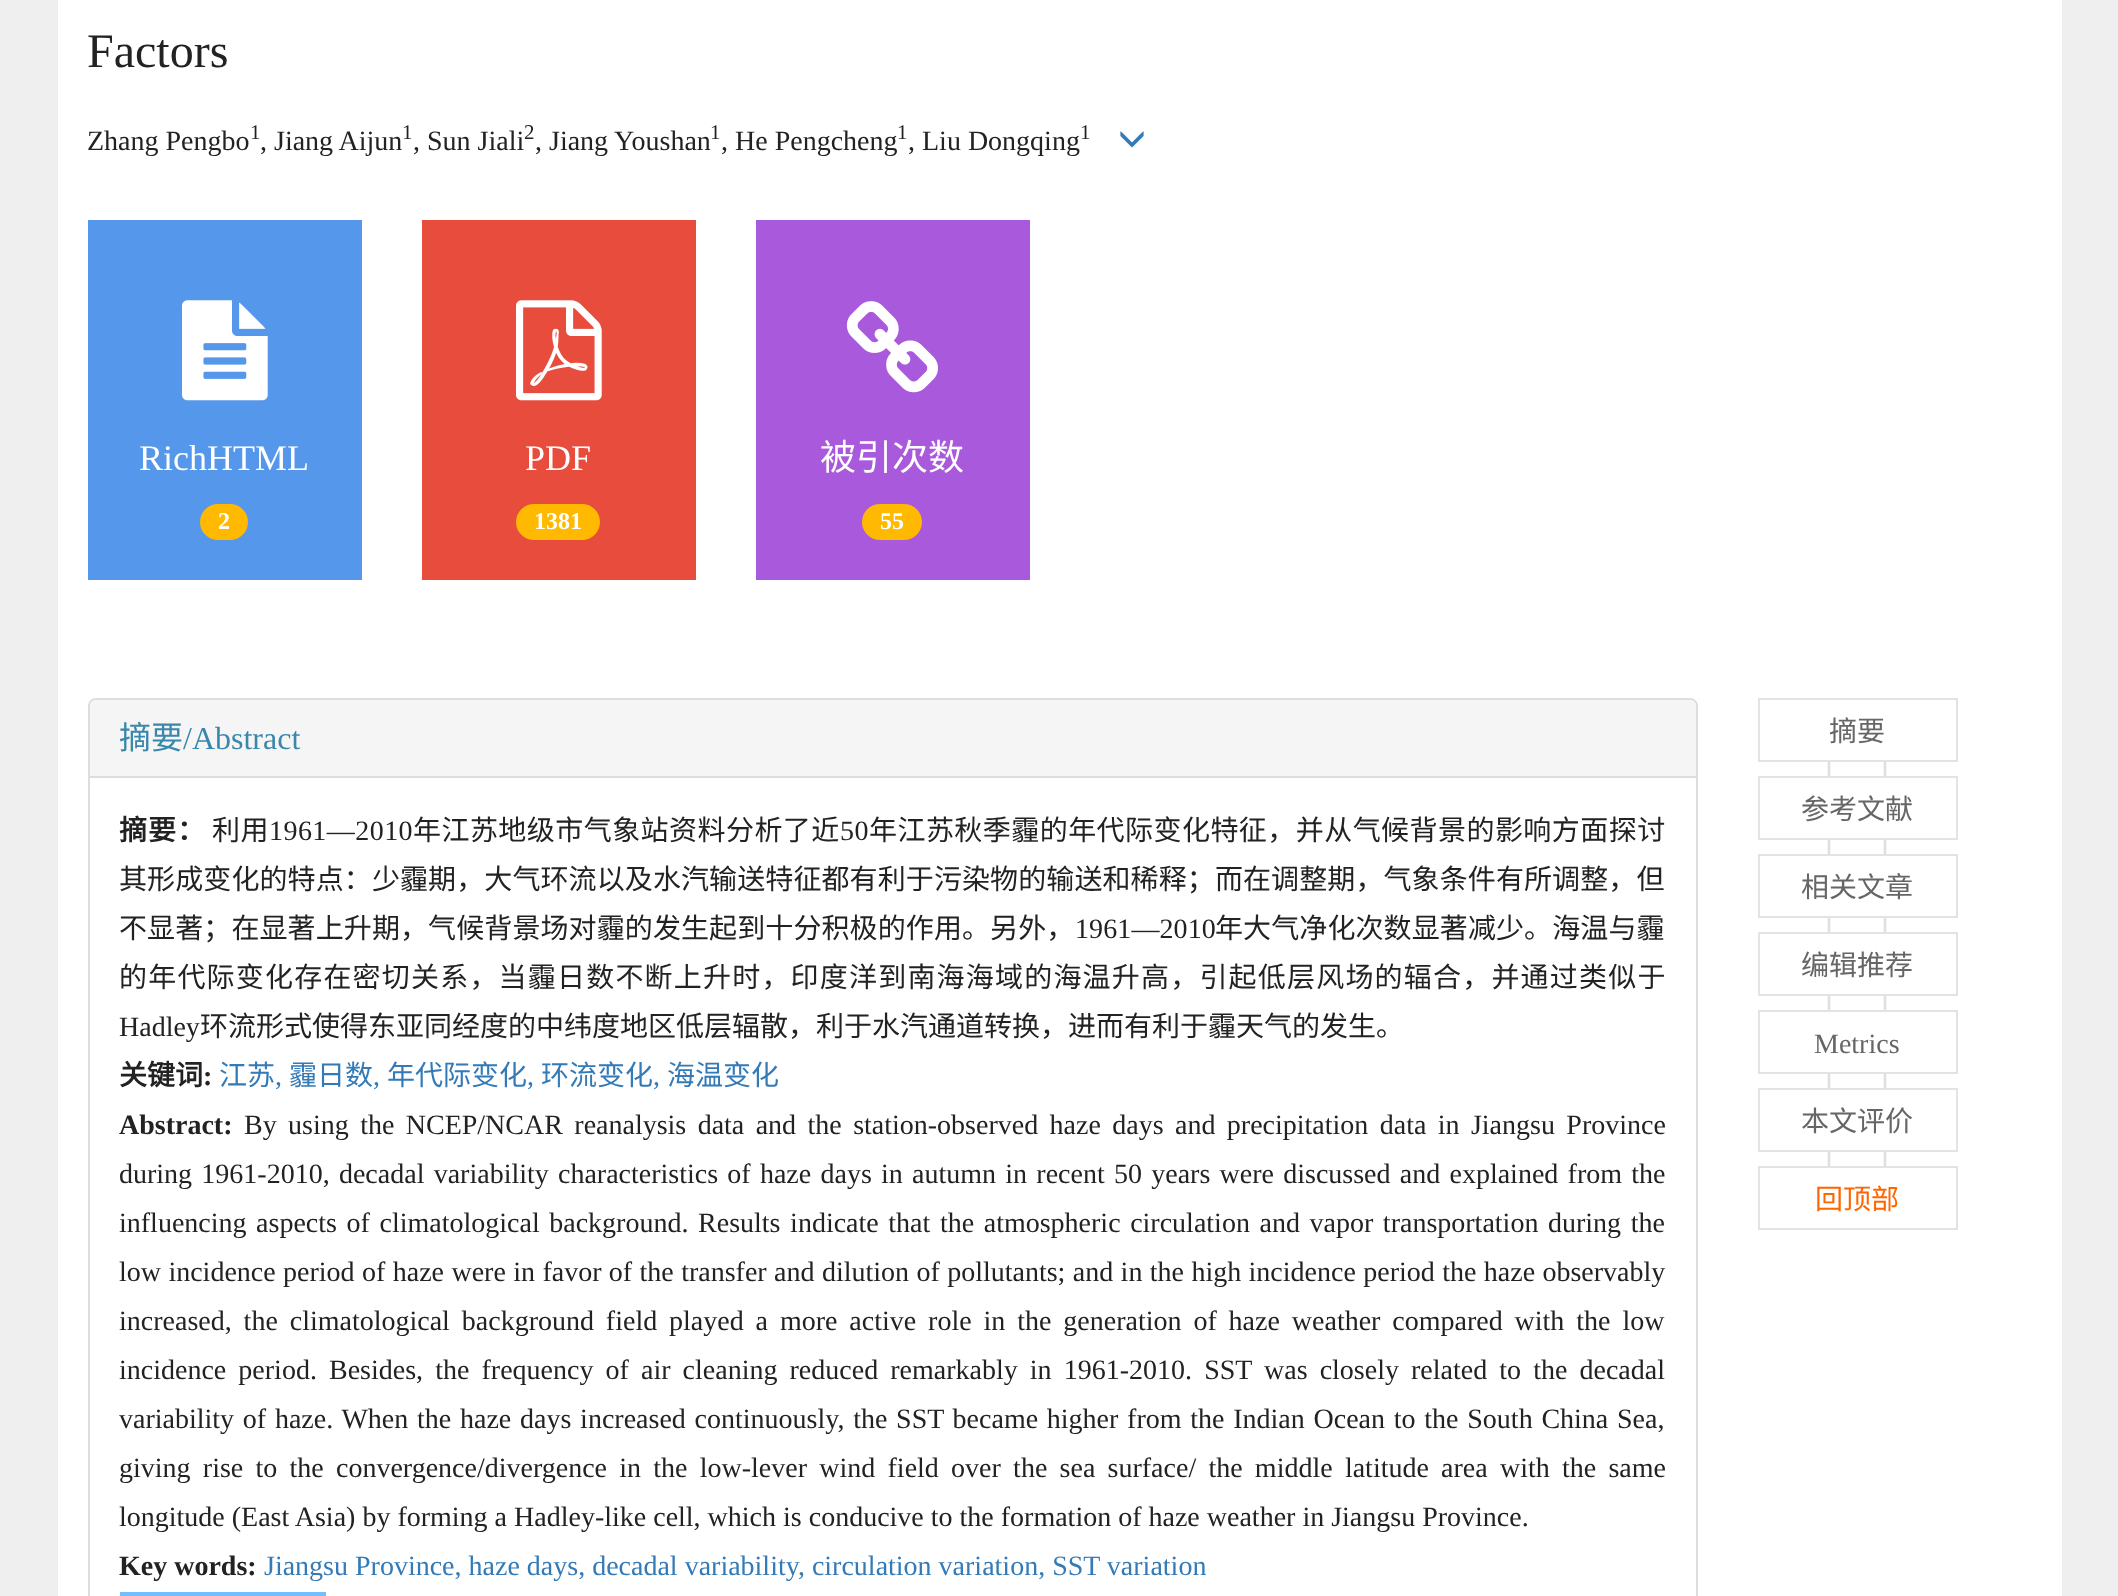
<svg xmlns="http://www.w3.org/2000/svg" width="2118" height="1596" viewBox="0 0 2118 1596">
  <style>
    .t1 { font: 48px Liberation Serif; fill: #222; }
    .t2 { font: 28px Liberation Serif; fill: #222; }
    .t3 { font: 21px Liberation Serif; fill: #222; }
    .t4 { font: 36px Liberation Serif; fill: #fff; }
    .t5 { font: bold 24px Liberation Serif; fill: #fff; }
    .t6 { font: 36px Noto Sans CJK SC; fill: #fff; }
    .t7 { font: 32px Noto Sans CJK SC; fill: #3a87ad; }
    .t8 { font: 32px Liberation Serif; fill: #3a87ad; }
    .t9 { font: bold 28px Noto Sans CJK SC; letter-spacing: 1px; fill: #222; }
    .t10 { font: 28px Noto Sans CJK SC; letter-spacing: 0.45px; fill: #222; }
    .t11 { font: 28px Liberation Serif; letter-spacing: 0.45px; fill: #222; }
    .t12 { font: 28px Noto Sans CJK SC; letter-spacing: 0.1px; fill: #222; }
    .t13 { font: 28px Liberation Serif; letter-spacing: 0.1px; fill: #222; }
    .t14 { font: 28px Noto Sans CJK SC; letter-spacing: 1.2px; fill: #222; }
    .t15 { font: 28px Noto Sans CJK SC; fill: #222; }
    .t16 { font: bold 28px Noto Sans CJK SC; fill: #222; }
    .t17 { font: bold 28px Liberation Serif; fill: #222; }
    .t18 { font: 28px Noto Sans CJK SC; fill: #337ab7; }
    .t19 { font: 28px Liberation Serif; fill: #337ab7; }
    .t20 { font: 28px Noto Sans CJK SC; fill: #666; }
    .t21 { font: 28px Liberation Serif; fill: #666; }
    .t22 { font: 28px Noto Sans CJK SC; fill: #f60; }
  </style>
  <rect width="100%" height="100%" fill="#efefef"/>
  <rect x="58" y="0" width="2004" height="1596" fill="#fff"/>
  <text x="87" y="67" class="t1">Factors</text>
  <text x="87" y="150" class="t2">Zhang Pengbo</text>
  <text x="250" y="139" class="t3">1</text>
  <text x="260" y="150" class="t2">, Jiang Aijun</text>
  <text x="402" y="139" class="t3">1</text>
  <text x="413" y="150" class="t2">, Sun Jiali</text>
  <text x="524" y="139" class="t3">2</text>
  <text x="535" y="150" class="t2">, Jiang Youshan</text>
  <text x="710" y="139" class="t3">1</text>
  <text x="721" y="150" class="t2">, He Pengcheng</text>
  <text x="897" y="139" class="t3">1</text>
  <text x="908" y="150" class="t2">, Liu Dongqing</text>
  <text x="1080" y="139" class="t3">1</text>
  <image x="1120" y="131" width="24" height="17" href="images/1.png"/>
  <rect x="88" y="220" width="274" height="360" fill="#5497eb"/>
  <image x="182" y="300" width="86" height="101" href="images/2.png"/>
  <text x="139" y="470" class="t4">RichHTML</text>
  <rect x="200" y="504" width="48" height="36" rx="18" fill="#ffb900"/>
  <text x="218" y="529" class="t5">2</text>
  <rect x="422" y="220" width="274" height="360" fill="#e74c3c"/>
  <image x="516" y="300" width="86" height="101" href="images/3.png"/>
  <text x="525" y="470" class="t4">PDF</text>
  <rect x="516" y="504" width="84" height="36" rx="18" fill="#ffb900"/>
  <text x="534" y="529" class="t5">1381</text>
  <rect x="756" y="220" width="274" height="360" fill="#a959db"/>
  <image x="846" y="301" width="92" height="92" href="images/4.png"/>
  <text x="820" y="470" class="t6">被引次数</text>
  <rect x="862" y="504" width="60" height="36" rx="18" fill="#ffb900"/>
  <text x="880" y="529" class="t5">55</text>
  <rect x="89" y="699" width="1608" height="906" rx="7" fill="none" stroke="#ddd" stroke-width="2"/>
  <path d="M96 700H1690C1693.5 700 1696 702.5 1696 706V776H90V706C90 702.5 92.5 700 96 700Z" fill="#f5f5f5"/>
  <text x="119" y="749" class="t7">摘要</text>
  <text x="183" y="749" class="t8">/Abstract</text>
  <rect x="90" y="776" width="1606" height="2" fill="#ddd"/>
  <text x="119" y="840" class="t9">摘要：</text>
  <text x="212" y="840" class="t10">利用</text>
  <text x="269" y="840" class="t11">1961—2010</text>
  <text x="413" y="840" class="t10">年江苏地级市气象站资料分析了近</text>
  <text x="840" y="840" class="t11">50</text>
  <text x="869" y="840" class="t10">年江苏秋季霾的年代际变化特征，并从气候背景的影响方面探讨</text>
  <text x="119" y="889" class="t12">其形成变化的特点：少霾期，大气环流以及水汽输送特征都有利于污染物的输送和稀释；而在调整期，气象条件有所调整，但</text>
  <text x="119" y="938" class="t12">不显著；在显著上升期，气候背景场对霾的发生起到十分积极的作用。另外，</text>
  <text x="1075" y="938" class="t13">1961—2010</text>
  <text x="1215" y="938" class="t12">年大气净化次数显著减少。海温与霾</text>
  <text x="119" y="987" class="t14">的年代际变化存在密切关系，当霾日数不断上升时，印度洋到南海海域的海温升高，引起低层风场的辐合，并通过类似于</text>
  <text x="119" y="1036" class="t2">Hadley</text>
  <text x="200" y="1036" class="t15">环流形式使得东亚同经度的中纬度地区低层辐散，利于水汽通道转换，进而有利于霾天气的发生。</text>
  <text x="119" y="1085" class="t16">关键词</text>
  <text x="203" y="1085" class="t17">:</text>
  <text x="219" y="1085" class="t18">江苏</text>
  <text x="275" y="1085" class="t19">,</text>
  <text x="289" y="1085" class="t18">霾日数</text>
  <text x="373" y="1085" class="t19">,</text>
  <text x="387" y="1085" class="t18">年代际变化</text>
  <text x="527" y="1085" class="t19">,</text>
  <text x="541" y="1085" class="t18">环流变化</text>
  <text x="653" y="1085" class="t19">,</text>
  <text x="667" y="1085" class="t18">海温变化</text>
  <text x="119" y="1134" class="t17">Abstract:</text>
  <text x="244" y="1134" word-spacing="4.4" class="t2">By using the NCEP/NCAR reanalysis data and the station-observed haze days and precipitation data in Jiangsu Province</text>
  <text x="119" y="1183" word-spacing="2.25" class="t2">during 1961-2010, decadal variability characteristics of haze days in autumn in recent 50 years were discussed and explained from the</text>
  <text x="119" y="1232" word-spacing="2.6" class="t2">influencing aspects of climatological background. Results indicate that the atmospheric circulation and vapor transportation during the</text>
  <text x="119" y="1281" word-spacing="0.4" class="t2">low incidence period of haze were in favor of the transfer and dilution of pollutants; and in the high incidence period the haze observably</text>
  <text x="119" y="1330" word-spacing="4.9" class="t2">increased, the climatological background field played a more active role in the generation of haze weather compared with the low</text>
  <text x="119" y="1379" word-spacing="5.1" class="t2">incidence period. Besides, the frequency of air cleaning reduced remarkably in 1961-2010. SST was closely related to the decadal</text>
  <text x="119" y="1428" word-spacing="1.75" class="t2">variability of haze. When the haze days increased continuously, the SST became higher from the Indian Ocean to the South China Sea,</text>
  <text x="119" y="1477" word-spacing="5.25" class="t2">giving rise to the convergence/divergence in the low-lever wind field over the sea surface/ the middle latitude area with the same</text>
  <text x="119" y="1526" class="t2">longitude (East Asia) by forming a Hadley-like cell, which is conducive to the formation of haze weather in Jiangsu Province.</text>
  <text x="119" y="1575" class="t17">Key words:</text>
  <text x="264" y="1575" class="t19">Jiangsu Province, haze days, decadal variability, circulation variation, SST variation</text>
  <rect x="120" y="1592" width="206" height="4" fill="#72beff"/>
  <image x="1827" y="762" width="60" height="14" href="images/5.png"/>
  <rect x="1759" y="699" width="198" height="62" fill="none" stroke="#e3e3e3" stroke-width="2"/>
  <text x="1829" y="741" class="t20">摘要</text>
  <image x="1827" y="840" width="60" height="14" href="images/5.png"/>
  <rect x="1759" y="777" width="198" height="62" fill="none" stroke="#e3e3e3" stroke-width="2"/>
  <text x="1801" y="819" class="t20">参考文献</text>
  <image x="1827" y="918" width="60" height="14" href="images/5.png"/>
  <rect x="1759" y="855" width="198" height="62" fill="none" stroke="#e3e3e3" stroke-width="2"/>
  <text x="1801" y="897" class="t20">相关文章</text>
  <image x="1827" y="996" width="60" height="14" href="images/5.png"/>
  <rect x="1759" y="933" width="198" height="62" fill="none" stroke="#e3e3e3" stroke-width="2"/>
  <text x="1801" y="975" class="t20">编辑推荐</text>
  <image x="1827" y="1074" width="60" height="14" href="images/5.png"/>
  <rect x="1759" y="1011" width="198" height="62" fill="none" stroke="#e3e3e3" stroke-width="2"/>
  <text x="1814" y="1053" class="t21">Metrics</text>
  <image x="1827" y="1152" width="60" height="14" href="images/5.png"/>
  <rect x="1759" y="1089" width="198" height="62" fill="none" stroke="#e3e3e3" stroke-width="2"/>
  <text x="1801" y="1131" class="t20">本文评价</text>
  <rect x="1759" y="1167" width="198" height="62" fill="none" stroke="#e3e3e3" stroke-width="2"/>
  <text x="1815" y="1209" class="t22">回顶部</text>
</svg>
